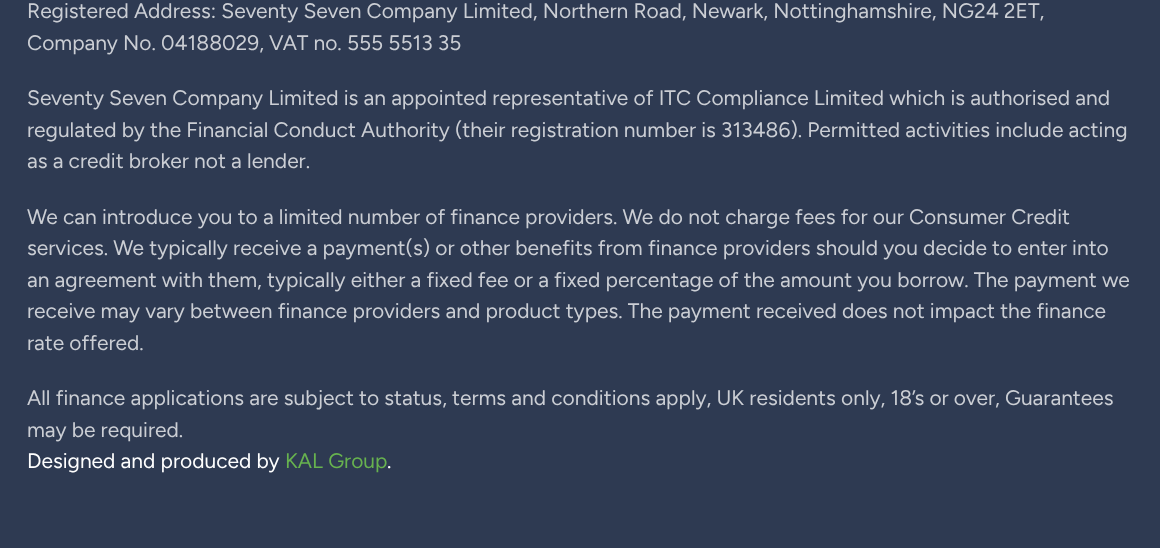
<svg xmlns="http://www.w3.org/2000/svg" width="1160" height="548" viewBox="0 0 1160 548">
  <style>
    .t1 { font: 21px Figtree; fill: #cbced4; }
    .t2 { font: 21px Figtree; fill: #fff; }
    .t3 { font: 21px Figtree; fill: #67b24f; }
  </style>
  <rect width="100%" height="100%" fill="#2e3a52"/>
  <text x="27" y="18" class="t1">Registered Address: Seventy Seven Company Limited, Northern Road, Newark, Nottinghamshire, NG24 2ET,</text>
  <text x="27" y="50" class="t1">Company No. 04188029, VAT no. 555 5513 35</text>
  <text x="27" y="105" class="t1">Seventy Seven Company Limited is an appointed representative of ITC Compliance Limited which is authorised and</text>
  <text x="27" y="137" class="t1">regulated by the Financial Conduct Authority (their registration number is 313486). Permitted activities include acting</text>
  <text x="27" y="168" class="t1">as a credit broker not a lender.</text>
  <text x="27" y="224" class="t1">We can introduce you to a limited number of finance providers. We do not charge fees for our Consumer Credit</text>
  <text x="27" y="255" class="t1">services. We typically receive a payment(s) or other benefits from finance providers should you decide to enter into</text>
  <text x="27" y="287" class="t1">an agreement with them, typically either a fixed fee or a fixed percentage of the amount you borrow. The payment we</text>
  <text x="27" y="318" class="t1">receive may vary between finance providers and product types. The payment received does not impact the finance</text>
  <text x="27" y="350" class="t1">rate offered.</text>
  <text x="27" y="405" class="t1">All finance applications are subject to status, terms and conditions apply, UK residents only, 18’s or over, Guarantees</text>
  <text x="27" y="437" class="t1">may be required.</text>
  <text x="27" y="468" class="t2">Designed and produced by</text>
  <text x="285" y="468" class="t3">KAL Group</text>
  <text x="387" y="468" class="t2">.</text>
</svg>
